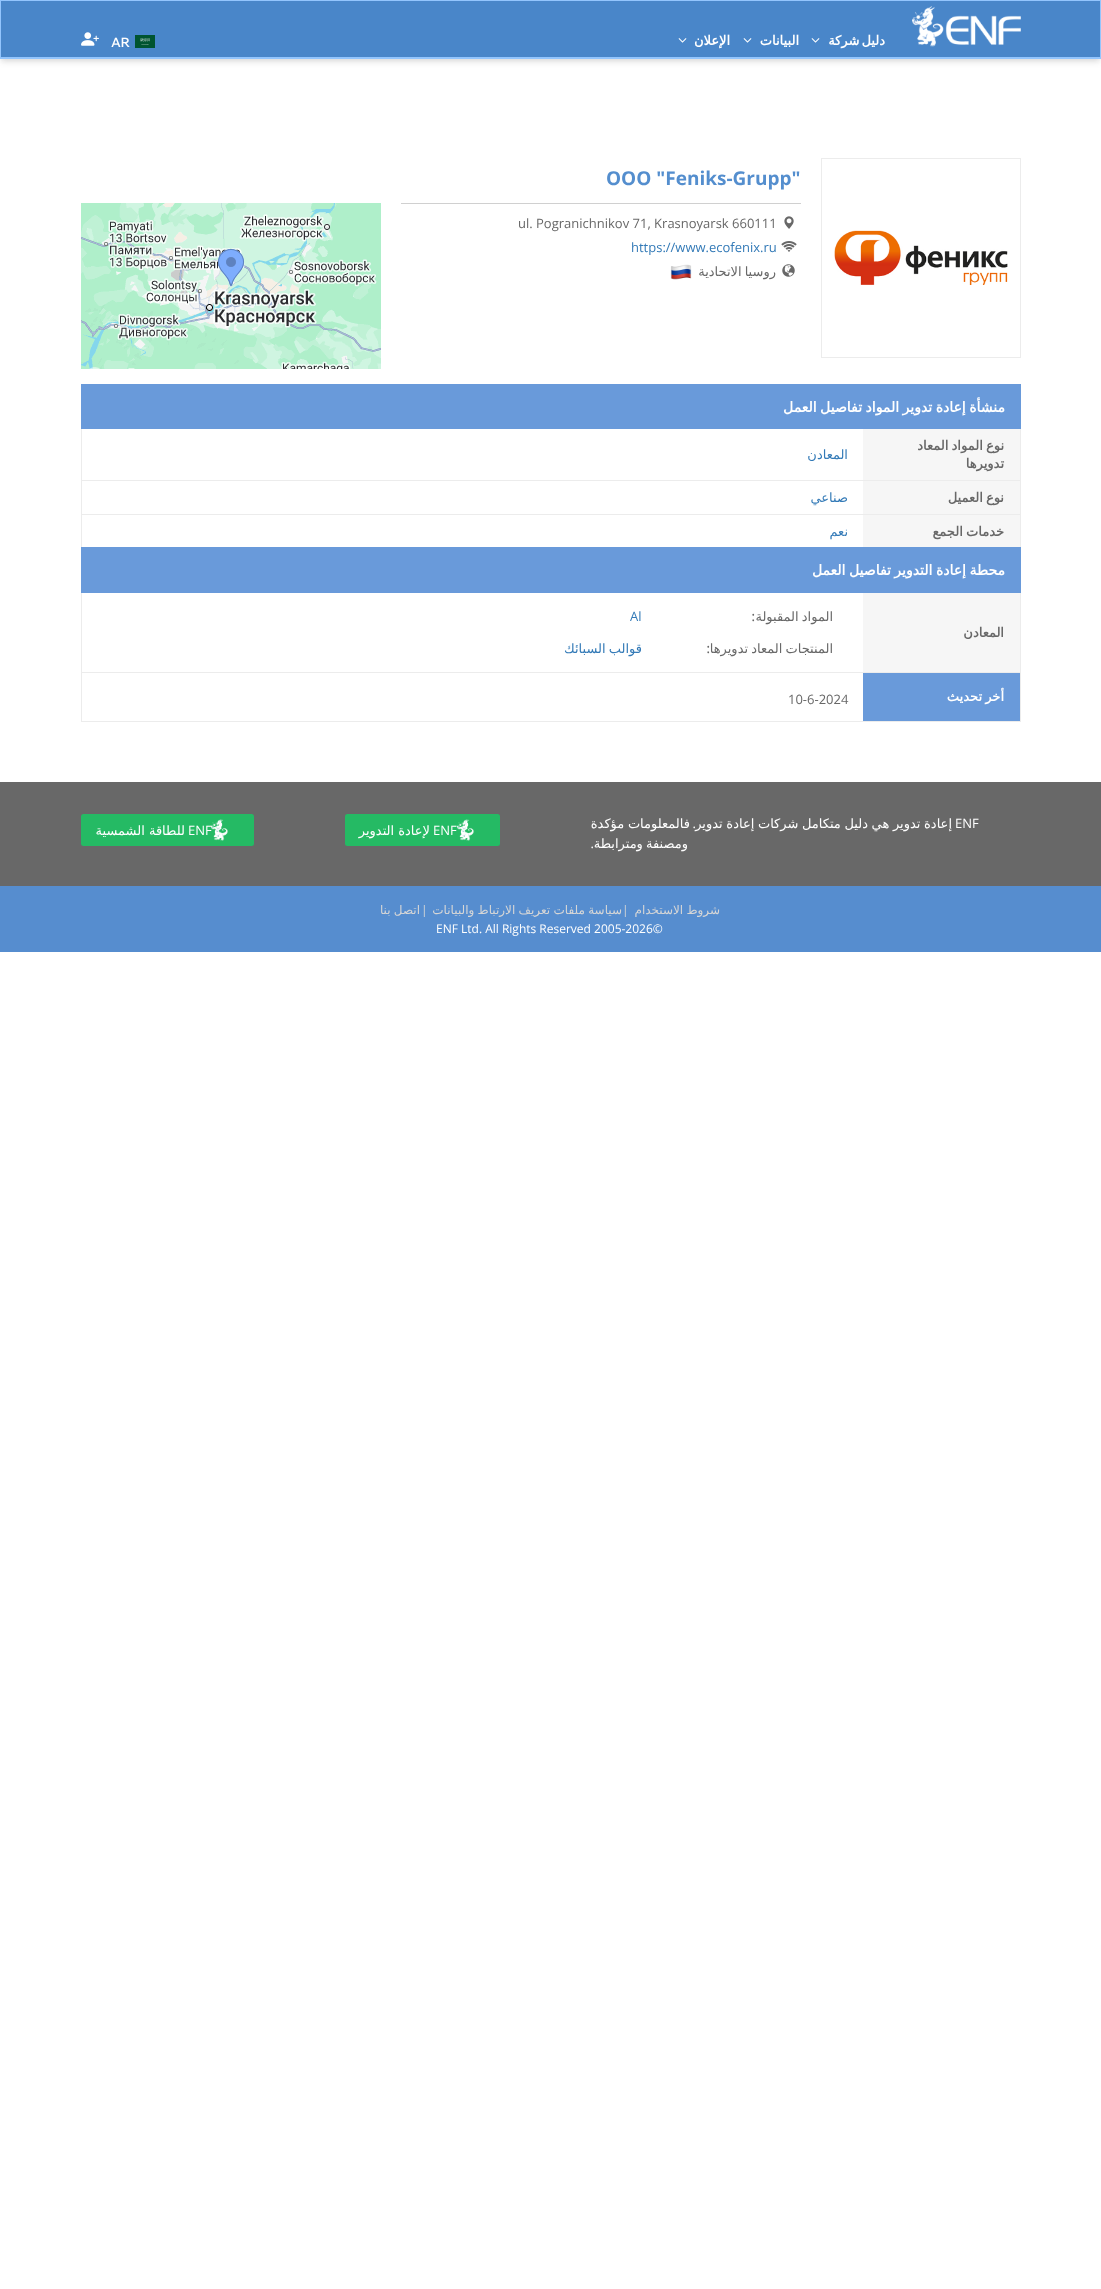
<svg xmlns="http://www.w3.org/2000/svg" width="1101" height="2289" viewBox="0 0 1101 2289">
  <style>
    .t1 { font: bold 13px DejaVu Sans; direction: rtl; fill: #fff; }
    .t2 { font: 600 13px Wix Madefor Display; fill: #fff; }
    .t3 { font: bold 19px Open Sans; fill: #548ece; }
    .t4 { font: 13px Open Sans; fill: #686868; }
    .t5 { font: 13px Open Sans; fill: #337ab7; }
    .t6 { font: 13px DejaVu Sans; direction: rtl; fill: #686868; }
    .t7 { font: bold 14px DejaVu Sans; direction: rtl; fill: #fff; }
    .t8 { font: bold 13px DejaVu Sans; direction: rtl; fill: #686868; }
    .t9 { font: 13px DejaVu Sans; direction: rtl; fill: #337ab7; }
    .t10 { font: 500 13px Open Sans; direction: rtl; fill: #686868; }
    .t11 { font: 13px DejaVu Sans; direction: rtl; fill: #fff; }
    .t12 { font: 13px Open Sans; fill: #fff; }
    .t13 { font: 13px Open Sans; direction: rtl; fill: #fff; }
    .t14 { font: 12px DejaVu Sans; direction: rtl; fill: #d6d6d6; }
    .t15 { font: 12px Open Sans; fill: #d6d6d6; }
    .t16 { font: 12px Open Sans; fill: #fff; }
  </style>
  <rect width="100%" height="100%" fill="#fff"/>
  <rect x="1" y="3" width="1099" height="57" fill="#0000000f" filter="blur(2px)"/>
  <rect x="1" y="5" width="1099" height="57" fill="#0000001a" filter="blur(3px)"/>
  <rect x="1" y="1" width="1099" height="56" fill="#4986c9"/>
  <rect x="0" y="0" width="1101" height="1" fill="#93c5fd"/>
  <rect x="1100" y="0" width="1" height="59" fill="#93c5fd"/>
  <rect x="0" y="57" width="1101" height="2" fill="#93c5fd"/>
  <rect x="0" y="0" width="1" height="59" fill="#93c5fd"/>
  <image x="912" y="6" width="109" height="41" href="images/1.png"/>
  <text x="885" y="45" word-spacing="-2" class="t1">دليل شركة</text>
  <image x="811" y="38" width="9" height="5" href="images/2.png"/>
  <text x="799" y="45" class="t1">البيانات</text>
  <image x="743" y="38" width="9" height="5" href="images/2.png"/>
  <text x="730" y="45" class="t1">الإعلان</text>
  <image x="678" y="38" width="9" height="5" href="images/2.png"/>
  <image x="135" y="35" width="20" height="13" href="images/3.png"/>
  <text x="111" y="47" class="t2">AR</text>
  <image x="81" y="32" width="18" height="14" href="images/4.png"/>
  <rect x="821.5" y="158.5" width="199" height="199" fill="none" stroke="#ececec"/>
  <image x="834" y="230" width="174" height="55" href="images/5.png"/>
  <text x="606" y="185" class="t3">OOO "Feniks-Grupp"</text>
  <rect x="401" y="203" width="400" height="1" fill="#d0d0d0"/>
  <image x="784" y="216" width="10" height="13" href="images/6.png"/>
  <text x="518" y="228" class="t4">ul. Pogranichnikov 71, Krasnoyarsk 660111</text>
  <image x="781" y="241" width="16" height="11" href="images/7.png"/>
  <text x="631" y="252" class="t5">https://www.ecofenix.ru</text>
  <image x="782" y="264" width="13" height="13" href="images/8.png"/>
  <text x="776" y="276" word-spacing="-1" class="t6">روسيا الاتحادية</text>
  <image x="670" y="264" width="22" height="16" href="images/9.png"/>
  <image x="81" y="203" width="300" height="166" href="images/10.png"/>
  <rect x="81" y="672" width="940" height="1" fill="#ececec"/>
  <rect x="81" y="384" width="940" height="45" fill="#699ada"/>
  <text x="1005" y="412" word-spacing="-1" class="t7">منشأة إعادة تدوير المواد تفاصيل العمل</text>
  <rect x="1020" y="429" width="1" height="118" fill="#ececec"/>
  <rect x="81" y="429" width="1" height="118" fill="#ececec"/>
  <rect x="863" y="429" width="157" height="51" fill="#f6f6f6"/>
  <text x="1004" y="450" word-spacing="-1" class="t8">نوع المواد المعاد</text>
  <text x="1004" y="468" class="t8">تدويرها</text>
  <text x="848" y="459" class="t9">المعادن</text>
  <rect x="82" y="480" width="938" height="1" fill="#ececec"/>
  <rect x="863" y="481" width="157" height="33" fill="#f6f6f6"/>
  <text x="1004" y="502" word-spacing="-1" class="t8">نوع العميل</text>
  <text x="848" y="502" class="t9">صناعي</text>
  <rect x="82" y="514" width="938" height="1" fill="#ececec"/>
  <rect x="863" y="515" width="157" height="32" fill="#f6f6f6"/>
  <text x="1004" y="536" word-spacing="-1" class="t8">خدمات الجمع</text>
  <text x="848" y="536" class="t9">نعم</text>
  <rect x="81" y="547" width="940" height="46" fill="#699ada"/>
  <text x="1005" y="575" word-spacing="-1" class="t7">محطة إعادة التدوير تفاصيل العمل</text>
  <rect x="1020" y="593" width="1" height="79" fill="#ececec"/>
  <rect x="81" y="593" width="1" height="79" fill="#ececec"/>
  <rect x="863" y="593" width="157" height="79" fill="#f6f6f6"/>
  <text x="1004" y="637" class="t8">المعادن</text>
  <text x="833" y="621" word-spacing="-1" class="t6">المواد المقبولة</text>
  <text x="755" y="621" class="t10">:</text>
  <text x="630" y="621" class="t5">Al</text>
  <text x="833" y="653" word-spacing="-1" class="t6">المنتجات المعاد تدويرها</text>
  <text x="710" y="653" class="t10">:</text>
  <text x="642" y="653" word-spacing="-1" class="t9">قوالب السبائك</text>
  <rect x="81" y="721" width="940" height="1" fill="#ececec"/>
  <rect x="1020" y="673" width="1" height="48" fill="#ececec"/>
  <rect x="81" y="673" width="1" height="48" fill="#ececec"/>
  <rect x="863" y="673" width="157" height="48" fill="#699ada"/>
  <text x="1004" y="701" word-spacing="-1" class="t1">أخر تحديث</text>
  <text x="788" y="704" class="t4">10-6-2024</text>
  <rect x="0" y="782" width="1101" height="104" fill="#686868"/>
  <text x="952" y="828" word-spacing="-0.5" class="t11">إعادة تدوير هي دليل متكامل شركات إعادة تدوير</text>
  <text x="955" y="828" class="t12">ENF</text>
  <text x="696" y="828" class="t13">.</text>
  <text x="690" y="828" word-spacing="-0.5" class="t11">فالمعلومات مؤكدة</text>
  <text x="688" y="848" word-spacing="-1" class="t11">ومصنفة ومترابطة</text>
  <text x="594" y="848" class="t13">.</text>
  <rect x="345" y="814" width="155" height="32" rx="2.5" fill="#25ba64"/>
  <image x="457" y="819" width="18" height="22" href="images/11.png"/>
  <text x="433" y="835" class="t12">ENF</text>
  <text x="430" y="835" class="t11">لإعادة التدوير</text>
  <rect x="81" y="814" width="173" height="32" rx="2.5" fill="#25ba64"/>
  <image x="211" y="819" width="18" height="22" href="images/11.png"/>
  <text x="188" y="835" class="t12">ENF</text>
  <text x="185" y="835" class="t11">للطاقة الشمسية</text>
  <rect x="0" y="886" width="1101" height="66" fill="#568dcf"/>
  <text x="720" y="914" word-spacing="-0.5" class="t14">شروط الاستخدام</text>
  <text x="622" y="914" class="t15">|</text>
  <text x="622" y="914" word-spacing="-0.5" class="t14">سياسة ملفات تعريف الارتباط والبيانات</text>
  <text x="421" y="914" class="t15">|</text>
  <text x="420" y="914" word-spacing="-0.5" class="t14">اتصل بنا</text>
  <text x="436" y="933" class="t16">ENF Ltd. All Rights Reserved 2005-2026©</text>
</svg>
